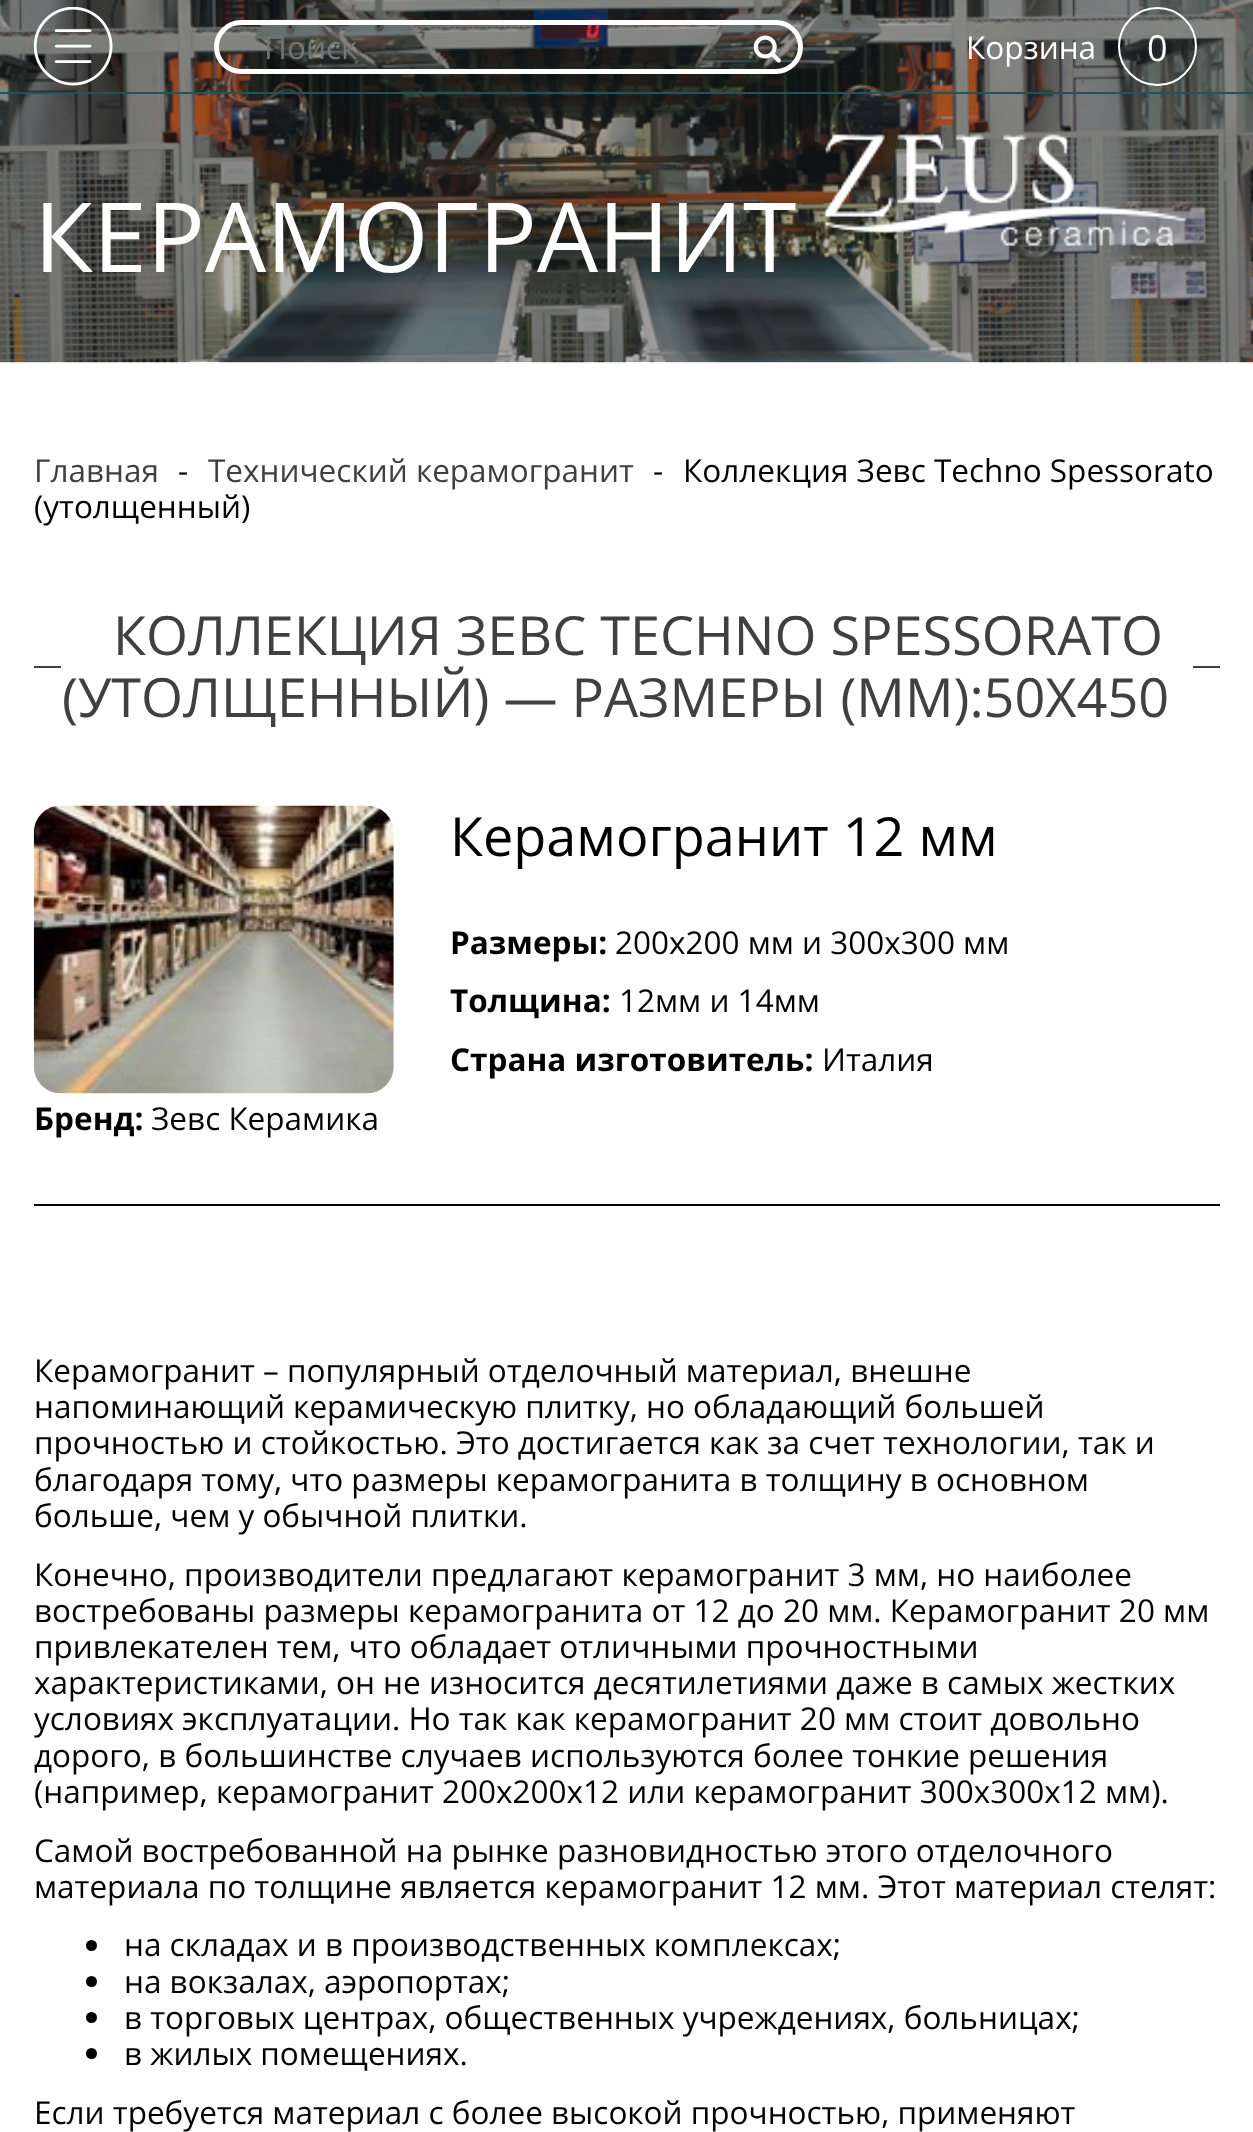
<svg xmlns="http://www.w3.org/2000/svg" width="1253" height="2132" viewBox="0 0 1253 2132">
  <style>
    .t1 { font: 31.5px Open Sans; fill: #fff; }
    .t2 { font: 36px Open Sans; fill: #fff; }
    .t3 { font: 96.75px Open Sans; fill: #fff; }
    .t4 { font: 31.5px Open Sans; fill: #757575; }
    .t5 { font: 31.5px Open Sans; fill: #404040; }
    .t6 { font: 31.5px Open Sans; fill: #000; }
    .t7 { font: 54px Open Sans; fill: #404040; }
    .t8 { font: 54px Open Sans; fill: #000; }
    .t9 { font: bold 31.5px Open Sans; fill: #000; }
  </style>
  <defs>
    <clipPath id="clip1"><rect x="34" y="603" width="1186" height="124"/></clipPath>
  </defs>
  <rect width="100%" height="100%" fill="#fff"/>
  <image x="0" y="0" width="1253" height="363" href="images/1.png"/>
  <text x="966" y="59" class="t1">Корзина</text>
  <circle cx="1157.5" cy="46.5" r="38.5" fill="none" stroke="#fff" stroke-width="2"/>
  <text x="1147" y="61" class="t2">0</text>
  <text x="34" y="272" class="t3">КЕРАМОГРАНИТ</text>
  <image x="825" y="134" width="361" height="112" href="images/2.png"/>
  <image x="825" y="134" width="361" height="112" href="images/3.png"/>
  <rect x="0" y="92" width="1253" height="2" fill="#17595a"/>
  <image x="34" y="7" width="79" height="79" href="images/4.png"/>
  <rect x="216.5" y="22.5" width="584" height="49" rx="24.5" fill="none" stroke="#fff" stroke-width="5"/>
  <text x="264" y="59" class="t4">Поиск</text>
  <image x="753" y="35" width="28" height="28" href="images/5.png"/>
  <text x="34" y="482" class="t5">Главная</text>
  <text x="178" y="482" class="t6">-</text>
  <text x="208" y="482" class="t5">Технический керамогранит</text>
  <text x="653" y="482" class="t6">-</text>
  <text x="683" y="482" class="t6">Коллекция Зевс Techno Spessorato</text>
  <text x="34" y="518" class="t6">(утолщенный)</text>
  <text x="113" y="655" class="t7">КОЛЛЕКЦИЯ ЗЕВС TECHNO SPESSORATO</text>
  <rect x="34" y="666" width="1186" height="2" fill="#404040"/>
  <rect x="61" y="666" width="1132" height="2" fill="#fff"/>
  <g clip-path="url(#clip1)">
    <text x="62" y="717" class="t7">(УТОЛЩЕННЫЙ) — РАЗМЕРЫ (ММ):50Х450</text>
  </g>
  <rect x="34" y="1204" width="1186" height="2" fill="#000"/>
  <image x="33" y="805" width="361" height="289" href="images/6.png"/>
  <text x="450" y="856" class="t8">Керамогранит 12 мм</text>
  <text x="450" y="954" class="t9">Размеры:</text>
  <text x="615" y="954" class="t6">200х200 мм и 300х300 мм</text>
  <text x="450" y="1012" class="t9">Толщина:</text>
  <text x="619" y="1012" class="t6">12мм и 14мм</text>
  <text x="450" y="1071" class="t9">Страна изготовитель:</text>
  <text x="822" y="1071" class="t6">Италия</text>
  <text x="34" y="1130" class="t9">Бренд:</text>
  <text x="151" y="1130" class="t6">Зевс Керамика</text>
  <text x="34" y="1382" class="t6">Керамогранит – популярный отделочный материал, внешне</text>
  <text x="34" y="1418" class="t6">напоминающий керамическую плитку, но обладающий большей</text>
  <text x="34" y="1454" class="t6">прочностью и стойкостью. Это достигается как за счет технологии, так и</text>
  <text x="34" y="1491" class="t6">благодаря тому, что размеры керамогранита в толщину в основном</text>
  <text x="34" y="1527" class="t6">больше, чем у обычной плитки.</text>
  <text x="34" y="1586" class="t6">Конечно, производители предлагают керамогранит 3 мм, но наиболее</text>
  <text x="34" y="1622" class="t6">востребованы размеры керамогранита от 12 до 20 мм. Керамогранит 20 мм</text>
  <text x="34" y="1658" class="t6">привлекателен тем, что обладает отличными прочностными</text>
  <text x="34" y="1694" class="t6">характеристиками, он не износится десятилетиями даже в самых жестких</text>
  <text x="34" y="1730" class="t6">условиях эксплуатации. Но так как керамогранит 20 мм стоит довольно</text>
  <text x="34" y="1767" class="t6">дорого, в большинстве случаев используются более тонкие решения</text>
  <text x="34" y="1803" class="t6">(например, керамогранит 200х200х12 или керамогранит 300х300х12 мм).</text>
  <text x="34" y="1862" class="t6">Самой востребованной на рынке разновидностью этого отделочного</text>
  <text x="34" y="1898" class="t6">материала по толщине является керамогранит 12 мм. Этот материал стелят:</text>
  <circle cx="91.5" cy="1945.5" r="5.5" fill="#000"/>
  <text x="124" y="1956" class="t6">на складах и в производственных комплексах;</text>
  <circle cx="91.5" cy="1981.5" r="5.5" fill="#000"/>
  <text x="124" y="1993" class="t6">на вокзалах, аэропортах;</text>
  <circle cx="91.5" cy="2017.5" r="5.5" fill="#000"/>
  <text x="124" y="2029" class="t6">в торговых центрах, общественных учреждениях, больницах;</text>
  <circle cx="91.5" cy="2053.5" r="5.5" fill="#000"/>
  <text x="124" y="2065" class="t6">в жилых помещениях.</text>
  <text x="34" y="2124" class="t6">Если требуется материал с более высокой прочностью, применяют</text>
</svg>
